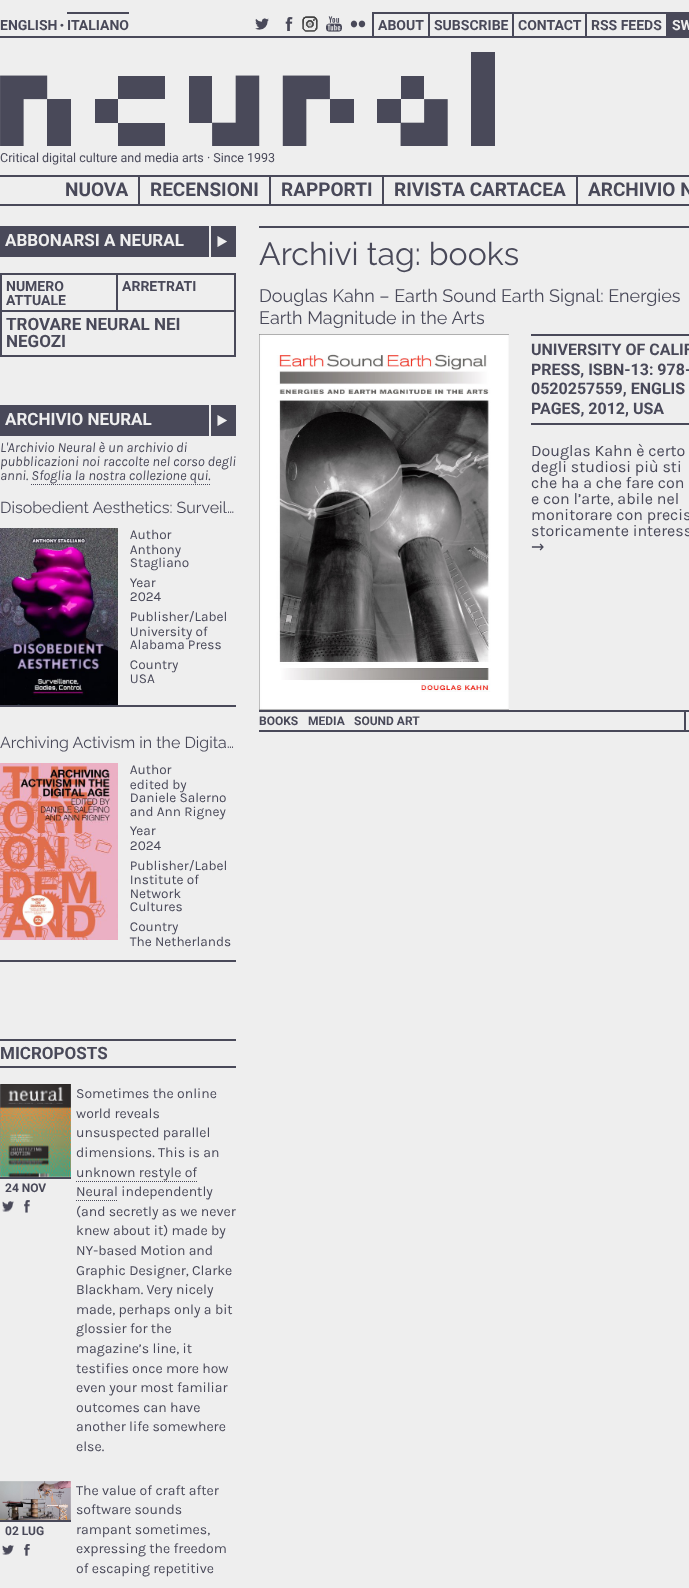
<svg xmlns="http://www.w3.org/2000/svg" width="689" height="1588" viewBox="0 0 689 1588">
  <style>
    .t1 { font: bold 14px Roboto; fill: #494959; }
    .t2 { font: 14px Karla; fill: #494959; }
    .t3 { font: bold 14px Roboto; fill: #eee; }
    .t4 { font: 12.5px Roboto; fill: #494959; }
    .t5 { font: bold 19px Roboto; fill: #494959; }
    .t6 { font: bold 17px Roboto; fill: #eee; }
    .t7 { font: bold 17px Roboto; fill: #494959; }
    .t8 { font: italic 14px Karla; fill: #494959; }
    .t9 { font: bold 12px Roboto; fill: #494959; }
    .t10 { font: 32px Raleway; fill: #494959; }
    .t11 { font: 18px Raleway; fill: #494959; }
    .t12 { font: bold 16px Roboto; fill: #494959; }
    .t13 { font: 16px Karla; fill: #494959; }
    .t14 { font: 16px DejaVu Sans; fill: #494959; }
  </style>
  <rect width="100%" height="100%" fill="#eee"/>
  <rect x="0" y="36" width="689" height="2" fill="#494959"/>
  <text x="0" y="30" class="t1">ENGLISH</text>
  <text x="60" y="29" class="t2">•</text>
  <rect x="67" y="12" width="62" height="2" fill="#494959"/>
  <text x="67" y="30" class="t1">ITALIANO</text>
  <image x="255" y="18" width="14" height="12" href="images/1.png"/>
  <image x="285" y="17" width="8" height="14" href="images/2.png"/>
  <image x="302" y="16" width="16" height="16" href="images/3.png"/>
  <image x="326" y="16" width="16" height="16" href="images/4.png"/>
  <image x="350" y="20" width="16" height="8" href="images/5.png"/>
  <rect x="372" y="12" width="317" height="2" fill="#494959"/>
  <rect x="372" y="12" width="2" height="24" fill="#494959"/>
  <text x="378" y="30" class="t1">ABOUT</text>
  <rect x="428" y="12" width="2" height="24" fill="#494959"/>
  <text x="434" y="30" class="t1">SUBSCRIBE</text>
  <rect x="512" y="12" width="2" height="24" fill="#494959"/>
  <text x="518" y="30" class="t1">CONTACT</text>
  <rect x="585" y="12" width="2" height="24" fill="#494959"/>
  <text x="591" y="30" class="t1">RSS FEEDS</text>
  <rect x="666" y="12" width="2" height="24" fill="#494959"/>
  <rect x="668" y="14" width="21" height="22" fill="#494959"/>
  <text x="672" y="30" class="t3">SW</text>
  <image x="0" y="52" width="495" height="94" href="images/6.png"/>
  <text x="0" y="162" class="t4">Critical digital culture and media arts · Since 1993</text>
  <rect x="0" y="175" width="689" height="2" fill="#494959"/>
  <rect x="0" y="204" width="689" height="2" fill="#494959"/>
  <text x="65" y="196" class="t5">NUOVA</text>
  <rect x="138" y="177" width="2" height="27" fill="#494959"/>
  <text x="150" y="196" class="t5">RECENSIONI</text>
  <rect x="269" y="177" width="2" height="27" fill="#494959"/>
  <text x="281" y="196" class="t5">RAPPORTI</text>
  <rect x="382" y="177" width="2" height="27" fill="#494959"/>
  <text x="394" y="196" class="t5">RIVISTA CARTACEA</text>
  <rect x="576" y="177" width="2" height="27" fill="#494959"/>
  <text x="588" y="196" class="t5">ARCHIVIO N</text>
  <rect x="0" y="226" width="236" height="31" fill="#494959"/>
  <image x="209" y="226" width="18" height="31" href="images/7.png"/>
  <text x="5" y="246" class="t6">ABBONARSI A NEURAL</text>
  <rect x="1" y="274" width="234" height="82" fill="none" stroke="#494959" stroke-width="2"/>
  <rect x="116" y="275" width="2" height="35" fill="#494959"/>
  <text x="6" y="291" class="t1">NUMERO</text>
  <text x="6" y="305" class="t1">ATTUALE</text>
  <text x="122" y="291" class="t1">ARRETRATI</text>
  <rect x="2" y="310" width="232" height="2" fill="#494959"/>
  <text x="6" y="330" class="t7">TROVARE NEURAL NEI</text>
  <text x="6" y="347" class="t7">NEGOZI</text>
  <rect x="0" y="405" width="236" height="31" fill="#494959"/>
  <image x="209" y="405" width="18" height="31" href="images/7.png"/>
  <text x="5" y="425" class="t6">ARCHIVIO NEURAL</text>
  <text x="0" y="452" class="t8">L'Archivio Neural è un archivio di</text>
  <text x="0" y="466" class="t8">pubblicazioni noi raccolte nel corso degli</text>
  <text x="0" y="480" class="t8">anni. Sfoglia la nostra collezione qui.</text>
  <path d="M31 484.5H210" fill="none" stroke="#494959" stroke-dasharray="1 1"/>
  <image x="0" y="501" width="236" height="461" href="images/8.png"/>
  <rect x="0" y="1039" width="236" height="2" fill="#494959"/>
  <rect x="0" y="1066" width="236" height="2" fill="#494959"/>
  <text x="0" y="1059" class="t7">MICROPOSTS</text>
  <image x="0" y="1084" width="71" height="93" href="images/9.png"/>
  <rect x="0" y="1177" width="71" height="2" fill="#494959"/>
  <text x="5" y="1192" class="t9">24 NOV</text>
  <image x="2" y="1201" width="12" height="11" href="images/10.png"/>
  <image x="24" y="1200" width="6" height="13" href="images/11.png"/>
  <text x="76" y="1098" class="t2">Sometimes the online</text>
  <text x="76" y="1118" class="t2">world reveals</text>
  <text x="76" y="1137" class="t2">unsuspected parallel</text>
  <text x="76" y="1157" class="t2">dimensions. This is an</text>
  <text x="76" y="1177" class="t2">unknown restyle of</text>
  <path d="M76 1181.5H197" fill="none" stroke="#494959" stroke-dasharray="1 1"/>
  <text x="76" y="1196" class="t2">Neural independently</text>
  <path d="M76 1200.5H117" fill="none" stroke="#494959" stroke-dasharray="1 1"/>
  <text x="76" y="1216" class="t2">(and secretly as we never</text>
  <text x="76" y="1235" class="t2">knew about it) made by</text>
  <text x="76" y="1255" class="t2">NY-based Motion and</text>
  <text x="76" y="1275" class="t2">Graphic Designer, Clarke</text>
  <text x="76" y="1294" class="t2">Blackham. Very nicely</text>
  <text x="76" y="1314" class="t2">made, perhaps only a bit</text>
  <text x="76" y="1333" class="t2">glossier for the</text>
  <text x="76" y="1353" class="t2">magazine’s line, it</text>
  <text x="76" y="1373" class="t2">testifies once more how</text>
  <text x="76" y="1392" class="t2">even your most familiar</text>
  <text x="76" y="1412" class="t2">outcomes can have</text>
  <text x="76" y="1431" class="t2">another life somewhere</text>
  <text x="76" y="1451" class="t2">else.</text>
  <image x="0" y="1481" width="71" height="39" href="images/12.png"/>
  <rect x="0" y="1520" width="71" height="2" fill="#494959"/>
  <text x="5" y="1535" class="t9">02 LUG</text>
  <image x="2" y="1545" width="12" height="10" href="images/13.png"/>
  <image x="24" y="1544" width="6" height="12" href="images/14.png"/>
  <text x="76" y="1495" class="t2">The value of craft after</text>
  <text x="76" y="1514" class="t2">software sounds</text>
  <text x="76" y="1534" class="t2">rampant sometimes,</text>
  <text x="76" y="1553" class="t2">expressing the freedom</text>
  <text x="76" y="1573" class="t2">of escaping repetitive</text>
  <rect x="259" y="226" width="430" height="2" fill="#494959"/>
  <text x="259" y="265" class="t10">Archivi tag: books</text>
  <text x="259" y="302" class="t11">Douglas Kahn – Earth Sound Earth Signal: Energies</text>
  <text x="259" y="324" class="t11">Earth Magnitude in the Arts</text>
  <image x="259" y="334" width="250" height="376" href="images/15.png"/>
  <rect x="531" y="334" width="158" height="2" fill="#494959"/>
  <rect x="531" y="423" width="158" height="2" fill="#494959"/>
  <text x="531" y="355" class="t12">UNIVERSITY OF CALIF</text>
  <text x="531" y="375" class="t12">PRESS, ISBN-13: 978-</text>
  <text x="531" y="394" class="t12">0520257559, ENGLIS</text>
  <text x="531" y="414" class="t12">PAGES, 2012, USA</text>
  <text x="531" y="456" class="t13">Douglas Kahn è certo</text>
  <text x="531" y="472" class="t13">degli studiosi più sti</text>
  <text x="531" y="488" class="t13">che ha a che fare con</text>
  <text x="531" y="504" class="t13">e con l’arte, abile nel</text>
  <text x="531" y="520" class="t13">monitorare con precis</text>
  <text x="531" y="536" class="t13">storicamente interess</text>
  <text x="531" y="552" class="t14">→</text>
  <rect x="259" y="710" width="430" height="2" fill="#494959"/>
  <rect x="259" y="730" width="430" height="2" fill="#494959"/>
  <text x="259" y="725" class="t9">BOOKS</text>
  <text x="308" y="725" class="t9">MEDIA</text>
  <text x="354" y="725" class="t9">SOUND ART</text>
  <rect x="684" y="712" width="2" height="18" fill="#494959"/>
</svg>
